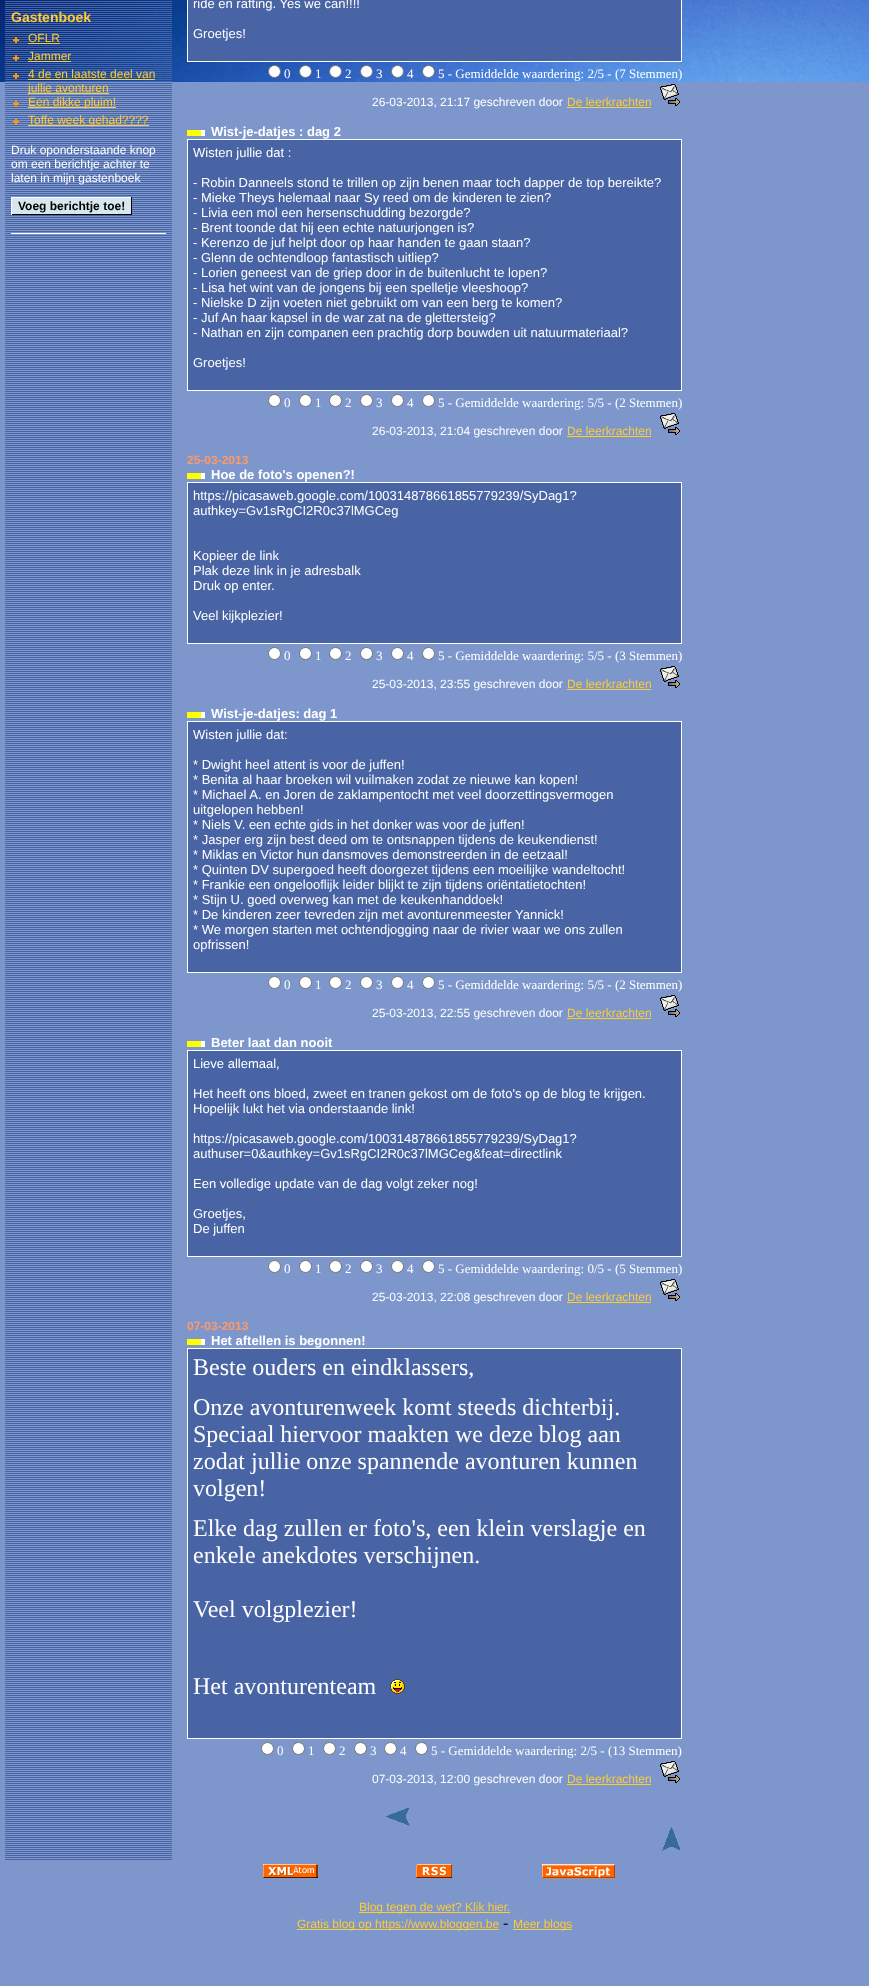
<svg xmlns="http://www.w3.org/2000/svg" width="869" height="1986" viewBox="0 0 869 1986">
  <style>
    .t1 { font: bold 14px Liberation Sans; fill: #fc3; }
    .t2 { font: 12px Liberation Sans; fill: #fc3; }
    .t3 { font: 12px Liberation Sans; fill: #fff; }
    .t4 { font: bold 12px Liberation Sans; fill: #000; }
    .t5 { font: 13px Liberation Sans; fill: #fff; }
    .t6 { font: 13px Liberation Serif; fill: #fff; }
    .t7 { font: bold 13px Liberation Sans; fill: #fff; }
    .t8 { font: bold 12px Liberation Sans; fill: #f96; }
    .t9 { font: 24px Liberation Serif; fill: #fff; }
    .t10 { font: 16px Liberation Serif; fill: #000; }
  </style>
  <rect width="100%" height="100%" fill="#7d97cc"/>
  <image x="0" y="0" width="869" height="82" href="images/1.png"/>
  <image x="5" y="1" width="167" height="1859" href="images/2.png"/>
  <text x="11" y="22" class="t1">Gastenboek</text>
  <image x="13" y="37" width="6" height="6" href="images/3.png"/>
  <text x="28" y="42" class="t2">OFLR</text>
  <rect x="28" y="43" width="32" height="1" fill="#fc3"/>
  <image x="13" y="55" width="6" height="6" href="images/4.png"/>
  <text x="28" y="60" class="t2">Jammer</text>
  <rect x="28" y="61" width="43" height="1" fill="#fc3"/>
  <image x="13" y="73" width="6" height="6" href="images/5.png"/>
  <text x="28" y="78" class="t2">4 de en laatste deel van</text>
  <rect x="28" y="79" width="127" height="1" fill="#fc3"/>
  <rect x="28" y="93" width="81" height="1" fill="#fc3"/>
  <text x="28" y="92" class="t2">jullie avonturen</text>
  <image x="13" y="101" width="6" height="6" href="images/6.png"/>
  <rect x="28" y="107" width="88" height="1" fill="#fc3"/>
  <text x="28" y="106" class="t2">Een dikke pluim!</text>
  <image x="13" y="119" width="6" height="6" href="images/6.png"/>
  <rect x="28" y="125" width="121" height="1" fill="#fc3"/>
  <text x="28" y="124" class="t2">Toffe week gehad????</text>
  <text x="11" y="154" class="t3">Druk oponderstaande knop</text>
  <text x="11" y="168" class="t3">om een berichtje achter te</text>
  <text x="11" y="182" class="t3">laten in mijn gastenboek</text>
  <rect x="12" y="198" width="119" height="16" fill="#d6e7ef"/>
  <rect x="11" y="197" width="121" height="1" fill="#fff"/>
  <rect x="131" y="197" width="1" height="18" fill="#000"/>
  <rect x="11" y="214" width="121" height="1" fill="#000"/>
  <rect x="11" y="197" width="1" height="18" fill="#fff"/>
  <text x="18" y="210" class="t4">Voeg berichtje toe!</text>
  <rect x="11" y="233" width="155" height="1" fill="#fff"/>
  <rect x="187.5" y="-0.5" width="494" height="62" fill="#4964a4" stroke="#fff"/>
  <text x="193" y="8" class="t5">ride en rafting. Yes we can!!!!</text>
  <text x="193" y="38" class="t5">Groetjes!</text>
  <circle cx="274.5" cy="71.5" r="6" fill="#fff" stroke="#767676"/>
  <text x="284" y="78" class="t6">0</text>
  <circle cx="305.5" cy="71.5" r="6" fill="#fff" stroke="#767676"/>
  <text x="315" y="78" class="t6">1</text>
  <circle cx="335.5" cy="71.5" r="6" fill="#fff" stroke="#767676"/>
  <text x="345" y="78" class="t6">2</text>
  <circle cx="366.5" cy="71.5" r="6" fill="#fff" stroke="#767676"/>
  <text x="376" y="78" class="t6">3</text>
  <circle cx="397.5" cy="71.5" r="6" fill="#fff" stroke="#767676"/>
  <text x="407" y="78" class="t6">4</text>
  <circle cx="428.5" cy="71.5" r="6" fill="#fff" stroke="#767676"/>
  <text x="438" y="78" class="t6">5 - Gemiddelde waardering: 2/5 - (7 Stemmen)</text>
  <text x="372" y="106" class="t3">26-03-2013, 21:17 geschreven door</text>
  <text x="567" y="106" class="t2">De leerkrachten</text>
  <rect x="567" y="107" width="84" height="1" fill="#fc3"/>
  <image x="660" y="84" width="20" height="22" href="images/7.png"/>
  <image x="187" y="130" width="18" height="6" href="images/8.png"/>
  <text x="211" y="136" class="t7">Wist-je-datjes : dag 2</text>
  <rect x="187.5" y="139.5" width="494" height="251" fill="#4964a4" stroke="#fff"/>
  <text x="193" y="157" class="t5">Wisten jullie dat :</text>
  <text x="193" y="187" class="t5">- Robin Danneels stond te trillen op zijn benen maar toch dapper de top bereikte?</text>
  <text x="193" y="202" class="t5">- Mieke Theys helemaal naar Sy reed om de kinderen te zien?</text>
  <text x="193" y="217" class="t5">- Livia een mol een hersenschudding bezorgde?</text>
  <text x="193" y="232" class="t5">- Brent toonde dat hij een echte natuurjongen is?</text>
  <text x="193" y="247" class="t5">- Kerenzo de juf helpt door op haar handen te gaan staan?</text>
  <text x="193" y="262" class="t5">- Glenn de ochtendloop fantastisch uitliep?</text>
  <text x="193" y="277" class="t5">- Lorien geneest van de griep door in de buitenlucht te lopen?</text>
  <text x="193" y="292" class="t5">- Lisa het wint van de jongens bij een spelletje vleeshoop?</text>
  <text x="193" y="307" class="t5">- Nielske D zijn voeten niet gebruikt om van een berg te komen?</text>
  <text x="193" y="322" class="t5">- Juf An haar kapsel in de war zat na de glettersteig?</text>
  <text x="193" y="337" class="t5">- Nathan en zijn companen een prachtig dorp bouwden uit natuurmateriaal?</text>
  <text x="193" y="367" class="t5">Groetjes!</text>
  <circle cx="274.5" cy="400.5" r="6" fill="#fff" stroke="#767676"/>
  <text x="284" y="407" class="t6">0</text>
  <circle cx="305.5" cy="400.5" r="6" fill="#fff" stroke="#767676"/>
  <text x="315" y="407" class="t6">1</text>
  <circle cx="335.5" cy="400.5" r="6" fill="#fff" stroke="#767676"/>
  <text x="345" y="407" class="t6">2</text>
  <circle cx="366.5" cy="400.5" r="6" fill="#fff" stroke="#767676"/>
  <text x="376" y="407" class="t6">3</text>
  <circle cx="397.5" cy="400.5" r="6" fill="#fff" stroke="#767676"/>
  <text x="407" y="407" class="t6">4</text>
  <circle cx="428.5" cy="400.5" r="6" fill="#fff" stroke="#767676"/>
  <text x="438" y="407" class="t6">5 - Gemiddelde waardering: 5/5 - (2 Stemmen)</text>
  <text x="372" y="435" class="t3">26-03-2013, 21:04 geschreven door</text>
  <text x="567" y="435" class="t2">De leerkrachten</text>
  <rect x="567" y="436" width="84" height="1" fill="#fc3"/>
  <image x="660" y="413" width="20" height="22" href="images/7.png"/>
  <text x="187" y="464" class="t8">25-03-2013</text>
  <image x="187" y="473" width="18" height="6" href="images/8.png"/>
  <text x="211" y="479" class="t7">Hoe de foto's openen?!</text>
  <rect x="187.5" y="482.5" width="494" height="161" fill="#4964a4" stroke="#fff"/>
  <text x="193" y="500" class="t5">https://picasaweb.google.com/100314878661855779239/SyDag1?</text>
  <text x="193" y="515" class="t5">authkey=Gv1sRgCI2R0c37lMGCeg</text>
  <text x="193" y="560" class="t5">Kopieer de link</text>
  <text x="193" y="575" class="t5">Plak deze link in je adresbalk</text>
  <text x="193" y="590" class="t5">Druk op enter.</text>
  <text x="193" y="620" class="t5">Veel kijkplezier!</text>
  <circle cx="274.5" cy="653.5" r="6" fill="#fff" stroke="#767676"/>
  <text x="284" y="660" class="t6">0</text>
  <circle cx="305.5" cy="653.5" r="6" fill="#fff" stroke="#767676"/>
  <text x="315" y="660" class="t6">1</text>
  <circle cx="335.5" cy="653.5" r="6" fill="#fff" stroke="#767676"/>
  <text x="345" y="660" class="t6">2</text>
  <circle cx="366.5" cy="653.5" r="6" fill="#fff" stroke="#767676"/>
  <text x="376" y="660" class="t6">3</text>
  <circle cx="397.5" cy="653.5" r="6" fill="#fff" stroke="#767676"/>
  <text x="407" y="660" class="t6">4</text>
  <circle cx="428.5" cy="653.5" r="6" fill="#fff" stroke="#767676"/>
  <text x="438" y="660" class="t6">5 - Gemiddelde waardering: 5/5 - (3 Stemmen)</text>
  <text x="372" y="688" class="t3">25-03-2013, 23:55 geschreven door</text>
  <text x="567" y="688" class="t2">De leerkrachten</text>
  <rect x="567" y="689" width="84" height="1" fill="#fc3"/>
  <image x="660" y="666" width="20" height="22" href="images/7.png"/>
  <image x="187" y="712" width="18" height="6" href="images/8.png"/>
  <text x="211" y="718" class="t7">Wist-je-datjes: dag 1</text>
  <rect x="187.5" y="721.5" width="494" height="251" fill="#4964a4" stroke="#fff"/>
  <text x="193" y="739" class="t5">Wisten jullie dat:</text>
  <text x="193" y="769" class="t5">* Dwight heel attent is voor de juffen!</text>
  <text x="193" y="784" class="t5">* Benita al haar broeken wil vuilmaken zodat ze nieuwe kan kopen!</text>
  <text x="193" y="799" class="t5">* Michael A. en Joren de zaklampentocht met veel doorzettingsvermogen</text>
  <text x="193" y="814" class="t5">uitgelopen hebben!</text>
  <text x="193" y="829" class="t5">* Niels V. een echte gids in het donker was voor de juffen!</text>
  <text x="193" y="844" class="t5">* Jasper erg zijn best deed om te ontsnappen tijdens de keukendienst!</text>
  <text x="193" y="859" class="t5">* Miklas en Victor hun dansmoves demonstreerden in de eetzaal!</text>
  <text x="193" y="874" class="t5">* Quinten DV supergoed heeft doorgezet tijdens een moeilijke wandeltocht!</text>
  <text x="193" y="889" class="t5">* Frankie een ongelooflijk leider blijkt te zijn tijdens oriëntatietochten!</text>
  <text x="193" y="904" class="t5">* Stijn U. goed overweg kan met de keukenhanddoek!</text>
  <text x="193" y="919" class="t5">* De kinderen zeer tevreden zijn met avonturenmeester Yannick!</text>
  <text x="193" y="934" class="t5">* We morgen starten met ochtendjogging naar de rivier waar we ons zullen</text>
  <text x="193" y="949" class="t5">opfrissen!</text>
  <circle cx="274.5" cy="982.5" r="6" fill="#fff" stroke="#767676"/>
  <text x="284" y="989" class="t6">0</text>
  <circle cx="305.5" cy="982.5" r="6" fill="#fff" stroke="#767676"/>
  <text x="315" y="989" class="t6">1</text>
  <circle cx="335.5" cy="982.5" r="6" fill="#fff" stroke="#767676"/>
  <text x="345" y="989" class="t6">2</text>
  <circle cx="366.5" cy="982.5" r="6" fill="#fff" stroke="#767676"/>
  <text x="376" y="989" class="t6">3</text>
  <circle cx="397.5" cy="982.5" r="6" fill="#fff" stroke="#767676"/>
  <text x="407" y="989" class="t6">4</text>
  <circle cx="428.5" cy="982.5" r="6" fill="#fff" stroke="#767676"/>
  <text x="438" y="989" class="t6">5 - Gemiddelde waardering: 5/5 - (2 Stemmen)</text>
  <text x="372" y="1017" class="t3">25-03-2013, 22:55 geschreven door</text>
  <text x="567" y="1017" class="t2">De leerkrachten</text>
  <rect x="567" y="1018" width="84" height="1" fill="#fc3"/>
  <image x="660" y="995" width="20" height="22" href="images/7.png"/>
  <image x="187" y="1041" width="18" height="6" href="images/8.png"/>
  <text x="211" y="1047" class="t7">Beter laat dan nooit</text>
  <rect x="187.5" y="1050.5" width="494" height="206" fill="#4964a4" stroke="#fff"/>
  <text x="193" y="1068" class="t5">Lieve allemaal,</text>
  <text x="193" y="1098" class="t5">Het heeft ons bloed, zweet en tranen gekost om de foto's op de blog te krijgen.</text>
  <text x="193" y="1113" class="t5">Hopelijk lukt het via onderstaande link!</text>
  <text x="193" y="1143" class="t5">https://picasaweb.google.com/100314878661855779239/SyDag1?</text>
  <text x="193" y="1158" class="t5">authuser=0&amp;authkey=Gv1sRgCI2R0c37lMGCeg&amp;feat=directlink</text>
  <text x="193" y="1188" class="t5">Een volledige update van de dag volgt zeker nog!</text>
  <text x="193" y="1218" class="t5">Groetjes,</text>
  <text x="193" y="1233" class="t5">De juffen</text>
  <circle cx="274.5" cy="1266.5" r="6" fill="#fff" stroke="#767676"/>
  <text x="284" y="1273" class="t6">0</text>
  <circle cx="305.5" cy="1266.5" r="6" fill="#fff" stroke="#767676"/>
  <text x="315" y="1273" class="t6">1</text>
  <circle cx="335.5" cy="1266.5" r="6" fill="#fff" stroke="#767676"/>
  <text x="345" y="1273" class="t6">2</text>
  <circle cx="366.5" cy="1266.5" r="6" fill="#fff" stroke="#767676"/>
  <text x="376" y="1273" class="t6">3</text>
  <circle cx="397.5" cy="1266.5" r="6" fill="#fff" stroke="#767676"/>
  <text x="407" y="1273" class="t6">4</text>
  <circle cx="428.5" cy="1266.5" r="6" fill="#fff" stroke="#767676"/>
  <text x="438" y="1273" class="t6">5 - Gemiddelde waardering: 0/5 - (5 Stemmen)</text>
  <text x="372" y="1301" class="t3">25-03-2013, 22:08 geschreven door</text>
  <text x="567" y="1301" class="t2">De leerkrachten</text>
  <rect x="567" y="1302" width="84" height="1" fill="#fc3"/>
  <image x="660" y="1279" width="20" height="22" href="images/7.png"/>
  <text x="187" y="1330" class="t8">07-03-2013</text>
  <image x="187" y="1339" width="18" height="6" href="images/8.png"/>
  <text x="211" y="1345" class="t7">Het aftellen is begonnen!</text>
  <rect x="187.5" y="1348.5" width="494" height="390" fill="#4964a4" stroke="#fff"/>
  <text x="193" y="1375" class="t9">Beste ouders en eindklassers,</text>
  <text x="193" y="1415" class="t9">Onze avonturenweek komt steeds dichterbij.</text>
  <text x="193" y="1442" class="t9">Speciaal hiervoor maakten we deze blog aan</text>
  <text x="193" y="1469" class="t9">zodat jullie onze spannende avonturen kunnen</text>
  <text x="193" y="1496" class="t9">volgen!</text>
  <text x="193" y="1536" class="t9">Elke dag zullen er foto's, een klein verslagje en</text>
  <text x="193" y="1563" class="t9">enkele anekdotes verschijnen.</text>
  <text x="193" y="1617" class="t9">Veel volgplezier!</text>
  <text x="193" y="1694" class="t9">Het avonturenteam</text>
  <image x="390" y="1679" width="15" height="15" href="images/9.png"/>
  <circle cx="267.5" cy="1748.5" r="6" fill="#fff" stroke="#767676"/>
  <text x="277" y="1755" class="t6">0</text>
  <circle cx="298.5" cy="1748.5" r="6" fill="#fff" stroke="#767676"/>
  <text x="308" y="1755" class="t6">1</text>
  <circle cx="329.5" cy="1748.5" r="6" fill="#fff" stroke="#767676"/>
  <text x="339" y="1755" class="t6">2</text>
  <circle cx="360.5" cy="1748.5" r="6" fill="#fff" stroke="#767676"/>
  <text x="370" y="1755" class="t6">3</text>
  <circle cx="390.5" cy="1748.5" r="6" fill="#fff" stroke="#767676"/>
  <text x="400" y="1755" class="t6">4</text>
  <circle cx="421.5" cy="1748.5" r="6" fill="#fff" stroke="#767676"/>
  <text x="431" y="1755" class="t6">5 - Gemiddelde waardering: 2/5 - (13 Stemmen)</text>
  <text x="372" y="1783" class="t3">07-03-2013, 12:00 geschreven door</text>
  <text x="567" y="1783" class="t2">De leerkrachten</text>
  <rect x="567" y="1784" width="84" height="1" fill="#fc3"/>
  <image x="660" y="1761" width="20" height="22" href="images/7.png"/>
  <image x="386" y="1808" width="24" height="18" href="images/10.png"/>
  <image x="662" y="1827" width="18" height="24" href="images/11.png"/>
  <image x="263" y="1864" width="55" height="14" href="images/12.png"/>
  <image x="416" y="1864" width="36" height="14" href="images/13.png"/>
  <image x="542" y="1864" width="73" height="15" href="images/14.png"/>
  <rect x="359" y="1912" width="151" height="1" fill="#fc3"/>
  <text x="359" y="1911" class="t2">Blog tegen de wet? Klik hier.</text>
  <rect x="297" y="1929" width="202" height="1" fill="#fc3"/>
  <text x="297" y="1928" class="t2">Gratis blog op https://www.bloggen.be</text>
  <text x="503" y="1928" class="t10">-</text>
  <rect x="513" y="1929" width="59" height="1" fill="#fc3"/>
  <text x="513" y="1928" class="t2">Meer blogs</text>
</svg>
